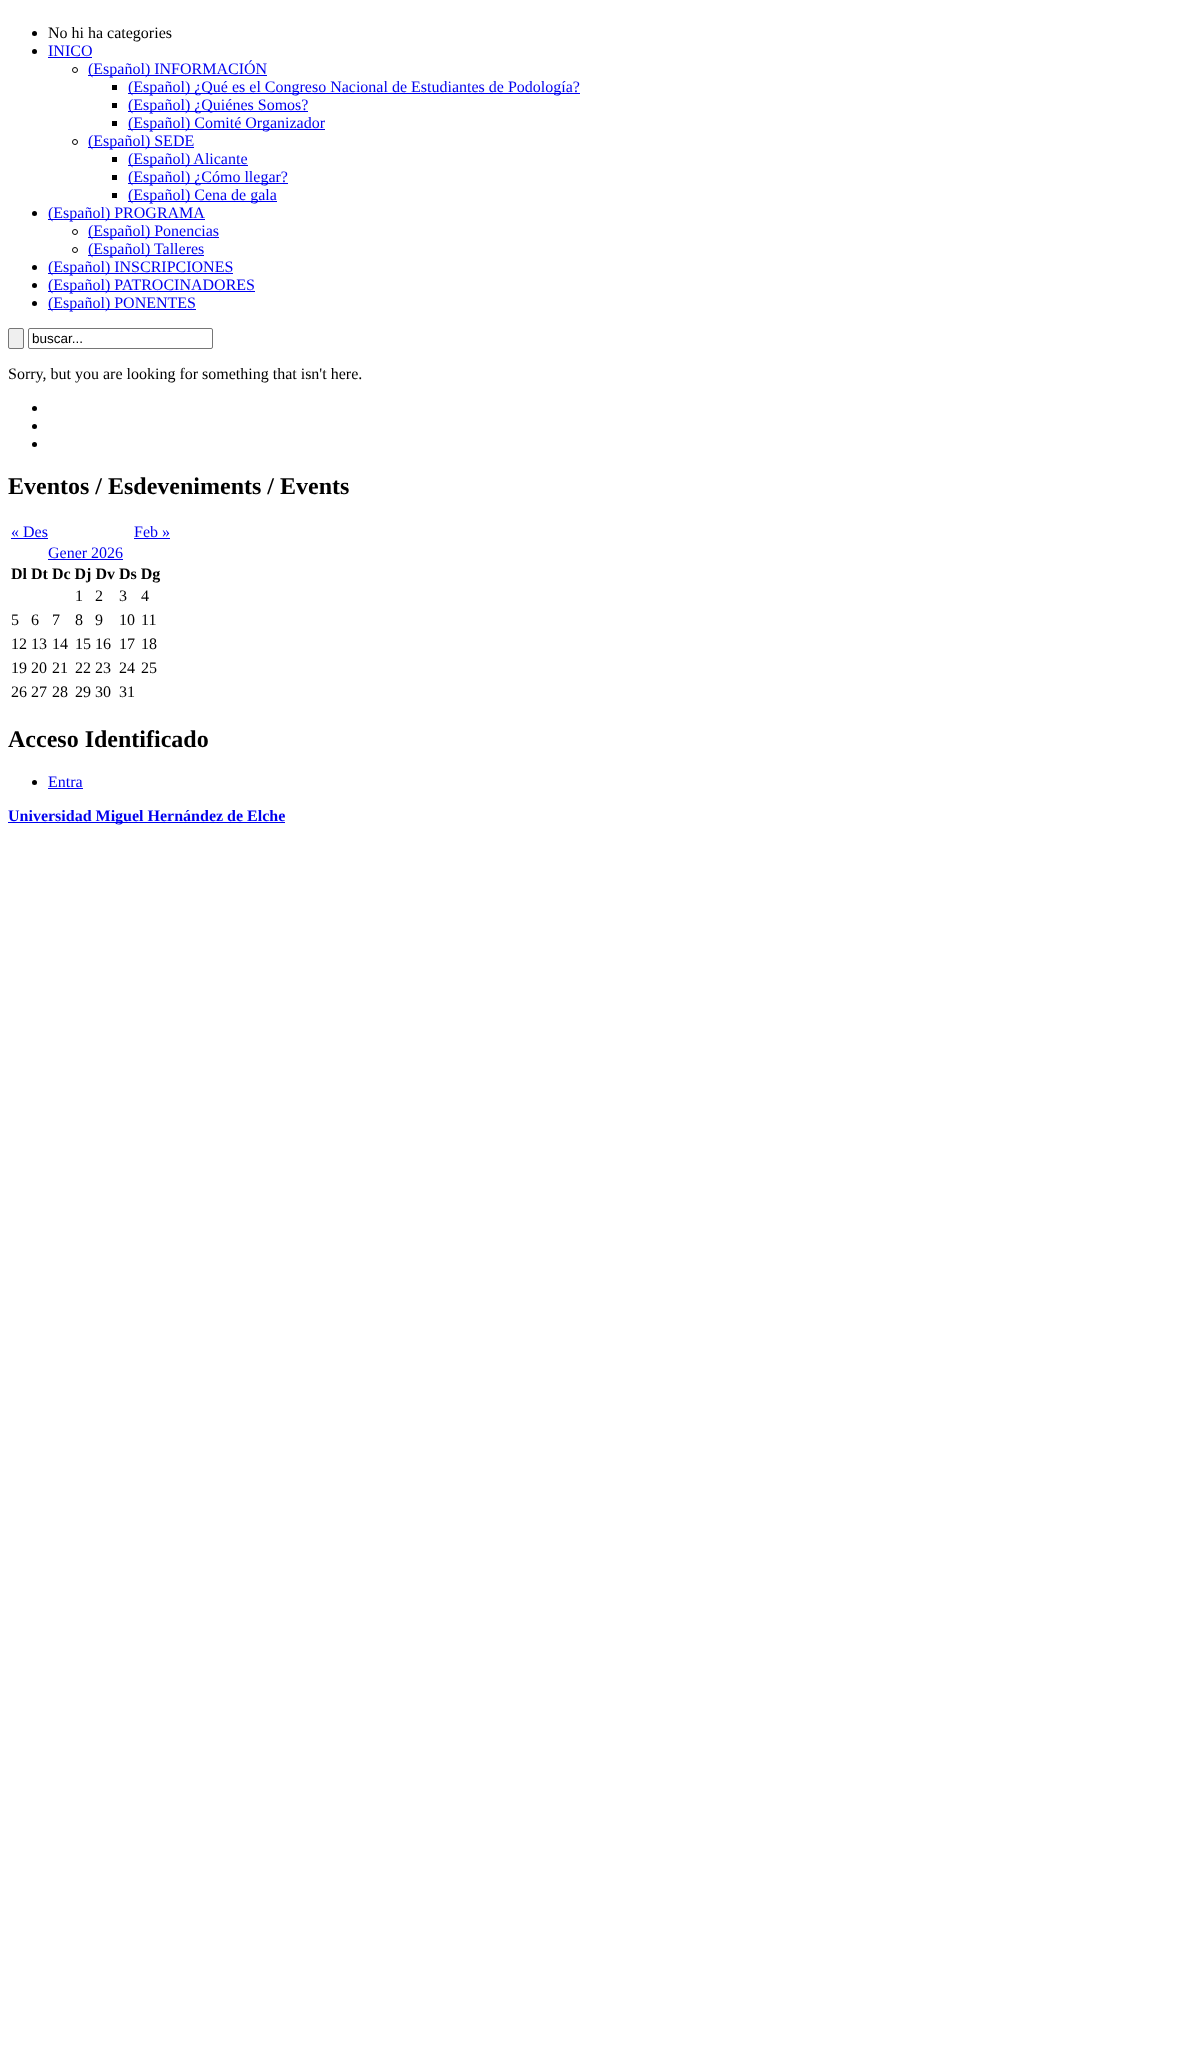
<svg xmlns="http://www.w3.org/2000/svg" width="1192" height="2063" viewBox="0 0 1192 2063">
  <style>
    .t1 { font: 16px Liberation Serif; fill: #000; }
    .t2 { font: 16px Liberation Serif; fill: #00e; }
    .t3 { font: 13.5px Liberation Sans; fill: #000; }
    .t4 { font: bold 24px Liberation Serif; fill: #000; }
    .t5 { font: bold 16px Liberation Serif; fill: #000; }
    .t6 { font: bold 16px Liberation Serif; fill: #00e; }
  </style>
  <rect width="100%" height="100%" fill="#fff"/>
  <circle cx="34.5" cy="33.5" r="2.5" fill="#000"/>
  <text x="48" y="38" class="t1">No hi ha categories</text>
  <circle cx="34.5" cy="51.5" r="2.5" fill="#000"/>
  <text x="48" y="56" class="t2">INICO</text>
  <rect x="48" y="57" width="44" height="1" fill="#00e"/>
  <circle cx="75" cy="70" r="2.5" fill="none" stroke="#000"/>
  <rect x="88" y="75" width="179" height="1" fill="#00e"/>
  <text x="88" y="74" class="t2">(Español) INFORMACIÓN</text>
  <rect x="112" y="85" width="5" height="5" fill="#000"/>
  <rect x="128" y="93" width="452" height="1" fill="#00e"/>
  <text x="128" y="92" class="t2">(Español) ¿Qué es el Congreso Nacional de Estudiantes de Podología?</text>
  <rect x="112" y="103" width="5" height="5" fill="#000"/>
  <rect x="128" y="111" width="180" height="1" fill="#00e"/>
  <text x="128" y="110" class="t2">(Español) ¿Quiénes Somos?</text>
  <rect x="112" y="121" width="5" height="5" fill="#000"/>
  <rect x="128" y="129" width="197" height="1" fill="#00e"/>
  <text x="128" y="128" class="t2">(Español) Comité Organizador</text>
  <circle cx="75" cy="142" r="2.5" fill="none" stroke="#000"/>
  <rect x="88" y="147" width="106" height="1" fill="#00e"/>
  <text x="88" y="146" class="t2">(Español) SEDE</text>
  <rect x="112" y="157" width="5" height="5" fill="#000"/>
  <rect x="128" y="165" width="120" height="1" fill="#00e"/>
  <text x="128" y="164" class="t2">(Español) Alicante</text>
  <rect x="112" y="175" width="5" height="5" fill="#000"/>
  <rect x="128" y="183" width="160" height="1" fill="#00e"/>
  <text x="128" y="182" class="t2">(Español) ¿Cómo llegar?</text>
  <rect x="112" y="193" width="5" height="5" fill="#000"/>
  <rect x="128" y="201" width="149" height="1" fill="#00e"/>
  <text x="128" y="200" class="t2">(Español) Cena de gala</text>
  <circle cx="34.5" cy="213.5" r="2.5" fill="#000"/>
  <rect x="48" y="219" width="157" height="1" fill="#00e"/>
  <text x="48" y="218" class="t2">(Español) PROGRAMA</text>
  <circle cx="75" cy="232" r="2.5" fill="none" stroke="#000"/>
  <rect x="88" y="237" width="131" height="1" fill="#00e"/>
  <text x="88" y="236" class="t2">(Español) Ponencias</text>
  <circle cx="75" cy="250" r="2.5" fill="none" stroke="#000"/>
  <rect x="88" y="255" width="116" height="1" fill="#00e"/>
  <text x="88" y="254" class="t2">(Español) Talleres</text>
  <circle cx="34.5" cy="267.5" r="2.5" fill="#000"/>
  <rect x="48" y="273" width="185" height="1" fill="#00e"/>
  <text x="48" y="272" class="t2">(Español) INSCRIPCIONES</text>
  <circle cx="34.5" cy="285.5" r="2.5" fill="#000"/>
  <rect x="48" y="291" width="207" height="1" fill="#00e"/>
  <text x="48" y="290" class="t2">(Español) PATROCINADORES</text>
  <circle cx="34.5" cy="303.5" r="2.5" fill="#000"/>
  <rect x="48" y="309" width="148" height="1" fill="#00e"/>
  <text x="48" y="308" class="t2">(Español) PONENTES</text>
  <rect x="8.5" y="328.5" width="15" height="20" rx="1.5" fill="#efefef" stroke="#767676"/>
  <rect x="28.5" y="328.5" width="184" height="20" rx="1.5" fill="none" stroke="#767676"/>
  <text x="32" y="343" class="t3">buscar...</text>
  <text x="8" y="379" class="t1">Sorry, but you are looking for something that isn't here.</text>
  <circle cx="34.5" cy="408.5" r="2.5" fill="#000"/>
  <circle cx="34.5" cy="426.5" r="2.5" fill="#000"/>
  <circle cx="34.5" cy="444.5" r="2.5" fill="#000"/>
  <text x="8" y="494" class="t4">Eventos / Esdeveniments / Events</text>
  <text x="11" y="537" class="t2">« Des</text>
  <rect x="11" y="538" width="37" height="1" fill="#00e"/>
  <text x="134" y="537" class="t2">Feb »</text>
  <rect x="134" y="538" width="36" height="1" fill="#00e"/>
  <text x="48" y="558" class="t2">Gener 2026</text>
  <rect x="48" y="559" width="75" height="1" fill="#00e"/>
  <text x="11" y="579" class="t5">Dl Dt Dc Dj Dv Ds Dg</text>
  <text x="75" y="601" class="t1">1</text>
  <text x="95" y="601" class="t1">2</text>
  <text x="119" y="601" class="t1">3</text>
  <text x="141" y="601" class="t1">4</text>
  <text x="11" y="625" class="t1">5</text>
  <text x="31" y="625" class="t1">6</text>
  <text x="52" y="625" class="t1">7</text>
  <text x="75" y="625" class="t1">8</text>
  <text x="95" y="625" class="t1">9</text>
  <text x="119" y="625" class="t1">10</text>
  <text x="141" y="625" class="t1">11</text>
  <text x="11" y="649" class="t1">12 13</text>
  <text x="52" y="649" class="t1">14</text>
  <text x="75" y="649" class="t1">15</text>
  <text x="95" y="649" class="t1">16</text>
  <text x="119" y="649" class="t1">17</text>
  <text x="141" y="649" class="t1">18</text>
  <text x="11" y="673" class="t1">19 20</text>
  <text x="52" y="673" class="t1">21</text>
  <text x="75" y="673" class="t1">22</text>
  <text x="95" y="673" class="t1">23</text>
  <text x="119" y="673" class="t1">24</text>
  <text x="141" y="673" class="t1">25</text>
  <text x="11" y="697" class="t1">26 27</text>
  <text x="52" y="697" class="t1">28</text>
  <text x="75" y="697" class="t1">29</text>
  <text x="95" y="697" class="t1">30</text>
  <text x="119" y="697" class="t1">31</text>
  <text x="8" y="747" class="t4">Acceso Identificado</text>
  <circle cx="34.5" cy="782.5" r="2.5" fill="#000"/>
  <text x="48" y="787" class="t2">Entra</text>
  <rect x="48" y="788" width="35" height="1" fill="#00e"/>
  <rect x="8" y="822" width="277" height="1" fill="#00e"/>
  <text x="8" y="821" class="t6">Universidad Miguel Hernández de Elche</text>
</svg>
